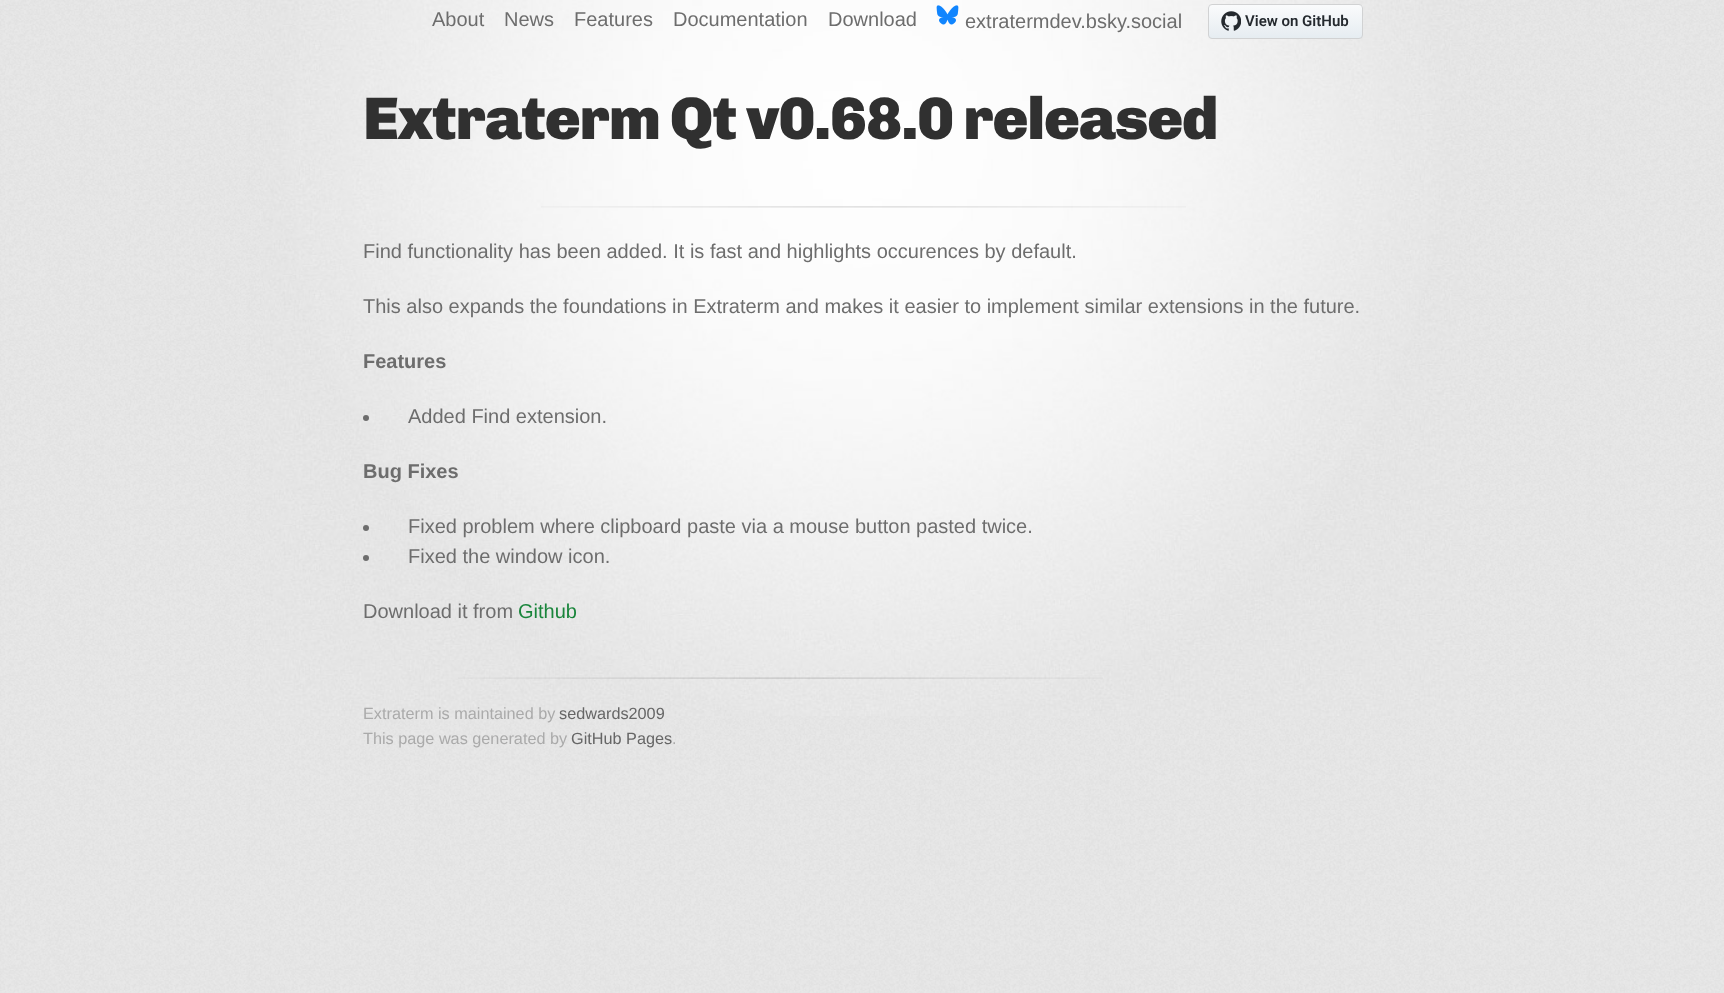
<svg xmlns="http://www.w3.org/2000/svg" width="1724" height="993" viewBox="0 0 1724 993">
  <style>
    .t1 { font: 20px Liberation Sans; fill: #6d6d6d; }
    .t2 { font: 600 15px Roboto; fill: #24292e; }
    .t3 { font: 500 60px Chivo; letter-spacing: -1.25px; fill: #303030; }
    .t4 { font: bold 20px Liberation Sans; fill: #6d6d6d; }
    .t5 { font: 20px Liberation Sans; fill: #19853b; }
    .t6 { font: 16.25px Liberation Sans; fill: #aaa; }
    .t7 { font: 16.25px Liberation Sans; fill: #666; }
  </style>
  <defs>
    <clipPath id="clip1"><rect x="1208" y="4" width="155" height="35" rx="4"/></clipPath>
    <linearGradient id="g1" gradientUnits="userSpaceOnUse" x1="1293" y1="5" x2="1293" y2="41"><stop offset="0" stop-color="#fafbfc"/><stop offset="1" stop-color="#e4ebf0"/></linearGradient>
  </defs>
  <rect width="100%" height="100%" fill="#fff"/>
  <image x="0" y="0" width="1724" height="993" href="images/1.png"/>
  <image x="263" y="0" width="1200" height="716" href="images/2.png"/>
  <text x="432" y="26" class="t1">About</text>
  <text x="504" y="26" class="t1">News</text>
  <text x="574" y="26" class="t1">Features</text>
  <text x="673" y="26" class="t1">Documentation</text>
  <text x="828" y="26" class="t1">Download</text>
  <image x="936" y="5" width="23" height="20" href="images/3.png"/>
  <text x="965" y="28" class="t1">extratermdev.bsky.social</text>
  <g clip-path="url(#clip1)">
    <path d="M1208 5H1363V35C1363 37 1361 39 1359 39H1212C1210 39 1208 37 1208 35Z" fill="url(#g1)"/>
  </g>
  <rect x="1208.5" y="4.5" width="154" height="34" rx="3.5" fill="none" stroke="#d1d2d3"/>
  <image x="1221" y="11" width="20" height="20" href="images/4.png"/>
  <text x="1245" y="26" class="t2">View on GitHub</text>
  <text x="363" y="139" class="t3">Extraterm Qt v0.68.0 released</text>
  <image x="541" y="206" width="645" height="2" href="images/5.png"/>
  <text x="363" y="258" class="t1">Find functionality has been added. It is fast and highlights occurences by default.</text>
  <text x="363" y="313" class="t1">This also expands the foundations in Extraterm and makes it easier to implement similar extensions in the future.</text>
  <text x="363" y="368" class="t4">Features</text>
  <circle cx="366" cy="418" r="3" fill="#6d6d6d"/>
  <text x="408" y="423" class="t1">Added Find extension.</text>
  <text x="363" y="478" class="t4">Bug Fixes</text>
  <circle cx="366" cy="528" r="3" fill="#6d6d6d"/>
  <text x="408" y="533" class="t1">Fixed problem where clipboard paste via a mouse button pasted twice.</text>
  <circle cx="366" cy="558" r="3" fill="#6d6d6d"/>
  <text x="408" y="563" class="t1">Fixed the window icon.</text>
  <text x="363" y="618" class="t1">Download it from</text>
  <text x="518" y="618" class="t5">Github</text>
  <image x="458" y="677" width="645" height="2" href="images/6.png"/>
  <text x="363" y="719" class="t6">Extraterm is maintained by</text>
  <text x="559" y="719" class="t7">sedwards2009</text>
  <text x="363" y="744" class="t6">This page was generated by</text>
  <text x="571" y="744" class="t7">GitHub Pages</text>
  <text x="672" y="744" class="t6">.</text>
</svg>
